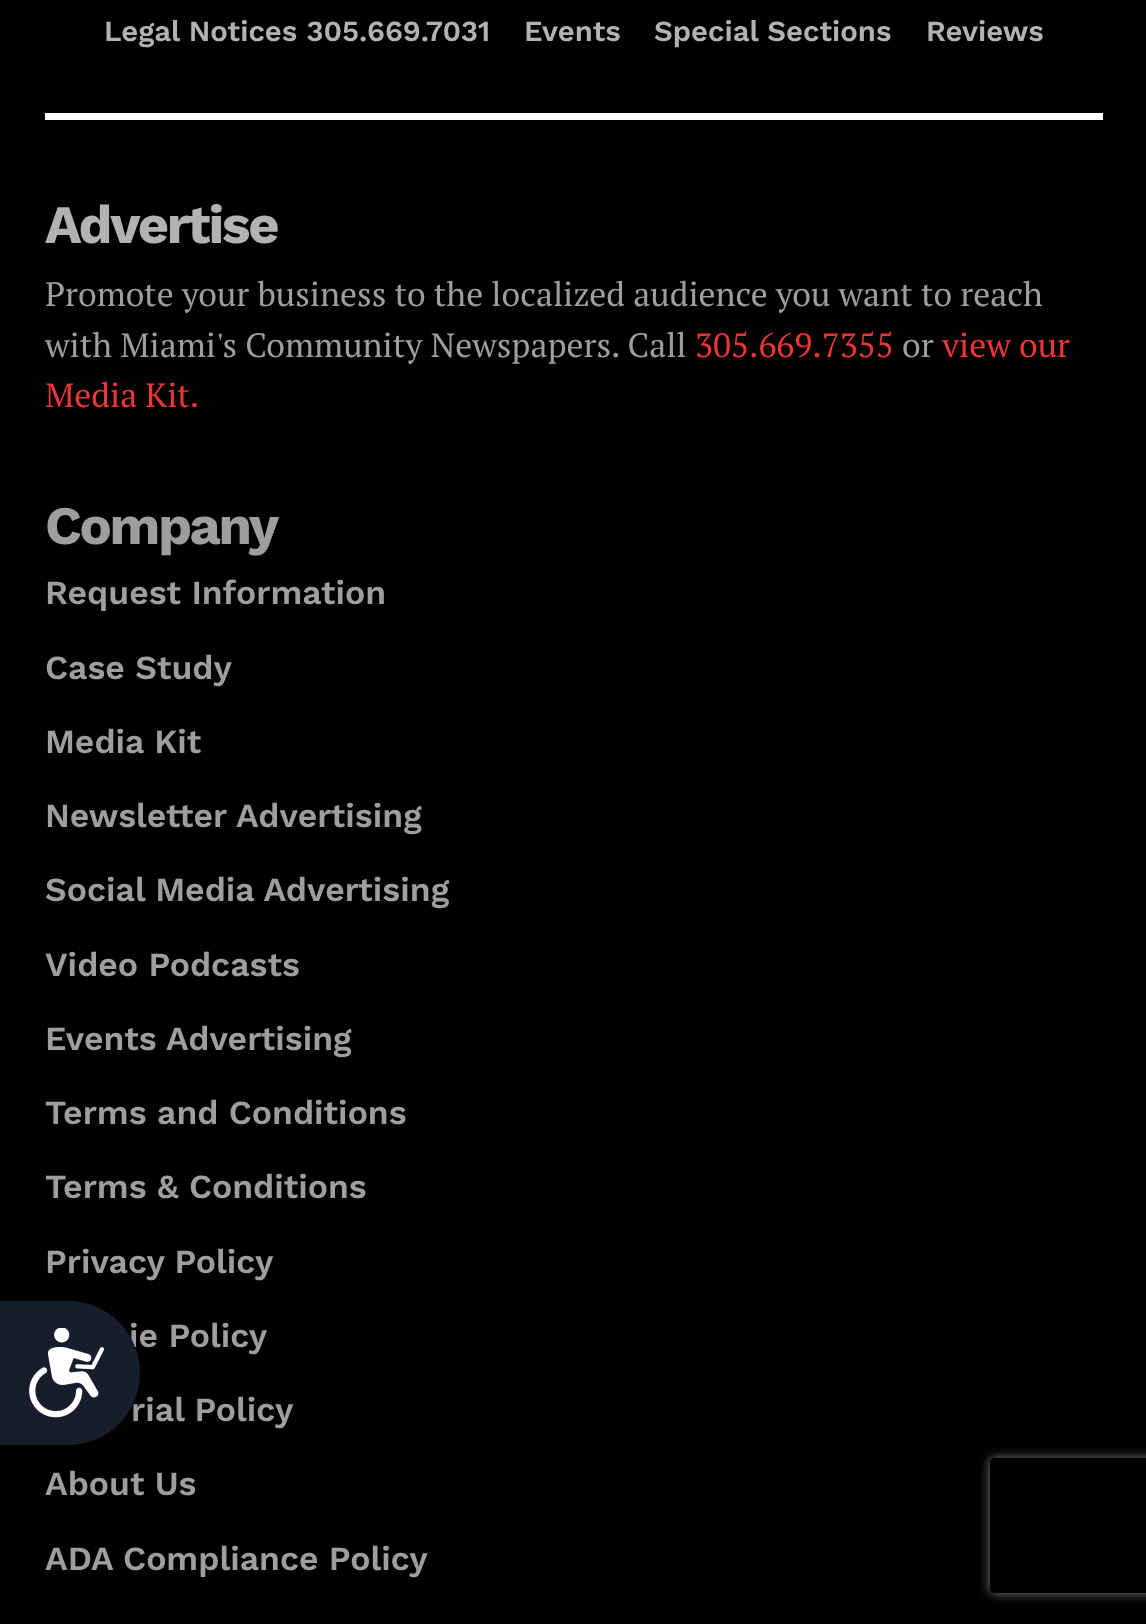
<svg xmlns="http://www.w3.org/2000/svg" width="1146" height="1624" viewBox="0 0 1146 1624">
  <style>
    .t1 { font: 600 29.25px Work Sans; fill: #b2b2b2; }
    .t2 { font: bold 54px Work Sans; letter-spacing: -2.25px; fill: #b2b2b2; }
    .t3 { font: 33.75px PT Serif; fill: #9e9e9e; }
    .t4 { font: 33.75px PT Serif; fill: #ec3535; }
    .t5 { font: bold 54px Work Sans; letter-spacing: -2.25px; fill: #9e9e9e; }
    .t6 { font: 600 33.75px Work Sans; fill: #9e9e9e; }
  </style>
  <defs>
    <clipPath id="clip1"><path d="M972 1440H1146V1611H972ZM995 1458H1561C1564 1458 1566 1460 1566 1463V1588C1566 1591 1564 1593 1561 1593H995C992 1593 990 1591 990 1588V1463C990 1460 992 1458 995 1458Z" clip-rule="evenodd"/></clipPath>
  </defs>
  <rect width="100%" height="100%" fill="#000"/>
  <rect x="45" y="113" width="1058" height="7" fill="#fff"/>
  <text x="104" y="41" class="t1">Legal Notices 305.669.7031</text>
  <text x="524" y="41" class="t1">Events</text>
  <text x="654" y="41" class="t1">Special Sections</text>
  <text x="926" y="41" class="t1">Reviews</text>
  <text x="45" y="243" class="t2">Advertise</text>
  <text x="45" y="306" class="t3">Promote your business to the localized audience you want to reach</text>
  <text x="45" y="357" class="t3">with Miami's Community Newspapers. Call</text>
  <text x="695" y="357" class="t4">305.669.7355</text>
  <text x="902" y="357" class="t3">or</text>
  <text x="942" y="357" class="t4">view our</text>
  <text x="45" y="407" class="t4">Media Kit.</text>
  <text x="45" y="544" class="t5">Company</text>
  <text x="45" y="604" class="t6">Request Information</text>
  <text x="45" y="679" class="t6">Case Study</text>
  <text x="45" y="753" class="t6">Media Kit</text>
  <text x="45" y="827" class="t6">Newsletter Advertising</text>
  <text x="45" y="901" class="t6">Social Media Advertising</text>
  <text x="45" y="976" class="t6">Video Podcasts</text>
  <text x="45" y="1050" class="t6">Events Advertising</text>
  <text x="45" y="1124" class="t6">Terms and Conditions</text>
  <text x="45" y="1198" class="t6">Terms &amp; Conditions</text>
  <text x="45" y="1273" class="t6">Privacy Policy</text>
  <text x="129" y="1347" class="t6">ie Policy</text>
  <text x="131" y="1421" class="t6">rial Policy</text>
  <text x="45" y="1495" class="t6">About Us</text>
  <text x="45" y="1570" class="t6">ADA Compliance Policy</text>
  <path d="M0 1301H68C108 1301 140 1333 140 1373C140 1413 108 1445 68 1445H0Z" fill="#171d2d"/>
  <image x="29" y="1328" width="75" height="90" href="images/1.png"/>
  <g clip-path="url(#clip1)">
    <rect x="990" y="1458" width="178" height="135" rx="5" fill="#808080" filter="blur(5.5px)"/>
  </g>
</svg>
